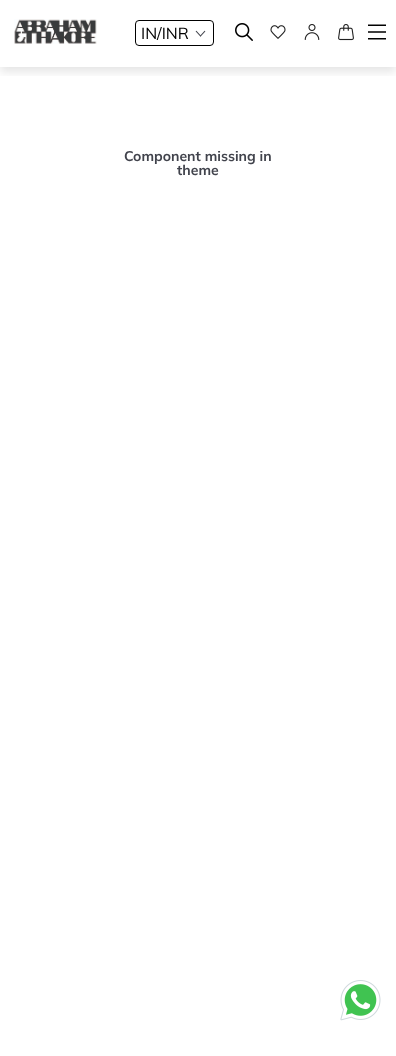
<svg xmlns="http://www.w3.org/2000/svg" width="396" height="1056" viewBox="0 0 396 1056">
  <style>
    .t1 { font: 16px Mulish; fill: #000; }
    .t2 { font: bold 14px Mulish; fill: #41434c; }
  </style>
  <defs>
    <clipPath id="clip1"><rect x="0" y="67" width="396" height="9"/></clipPath>
  </defs>
  <rect width="100%" height="100%" fill="#fff"/>
  <g clip-path="url(#clip1)">
    <rect x="0" y="5" width="396" height="67" fill="#0000001a" filter="blur(5px)"/>
  </g>
  <image x="14" y="19" width="83" height="25" href="images/1.png"/>
  <rect x="135.5" y="20.5" width="78" height="25" rx="3.5" fill="none" stroke="#000"/>
  <text x="141" y="39" class="t1">IN/INR</text>
  <image x="195" y="30" width="11" height="7" href="images/2.png"/>
  <image x="235" y="23" width="18" height="18" href="images/3.png"/>
  <image x="270" y="25" width="16" height="14" href="images/4.png"/>
  <image x="304" y="24" width="16" height="16" href="images/5.png"/>
  <image x="338" y="24" width="16" height="17" href="images/6.png"/>
  <image x="368" y="24" width="18" height="16" href="images/7.png"/>
  <image x="340" y="980" width="41" height="41" href="images/8.png"/>
  <text x="124" y="161" class="t2">Component missing in</text>
  <text x="177" y="175" class="t2">theme</text>
</svg>
